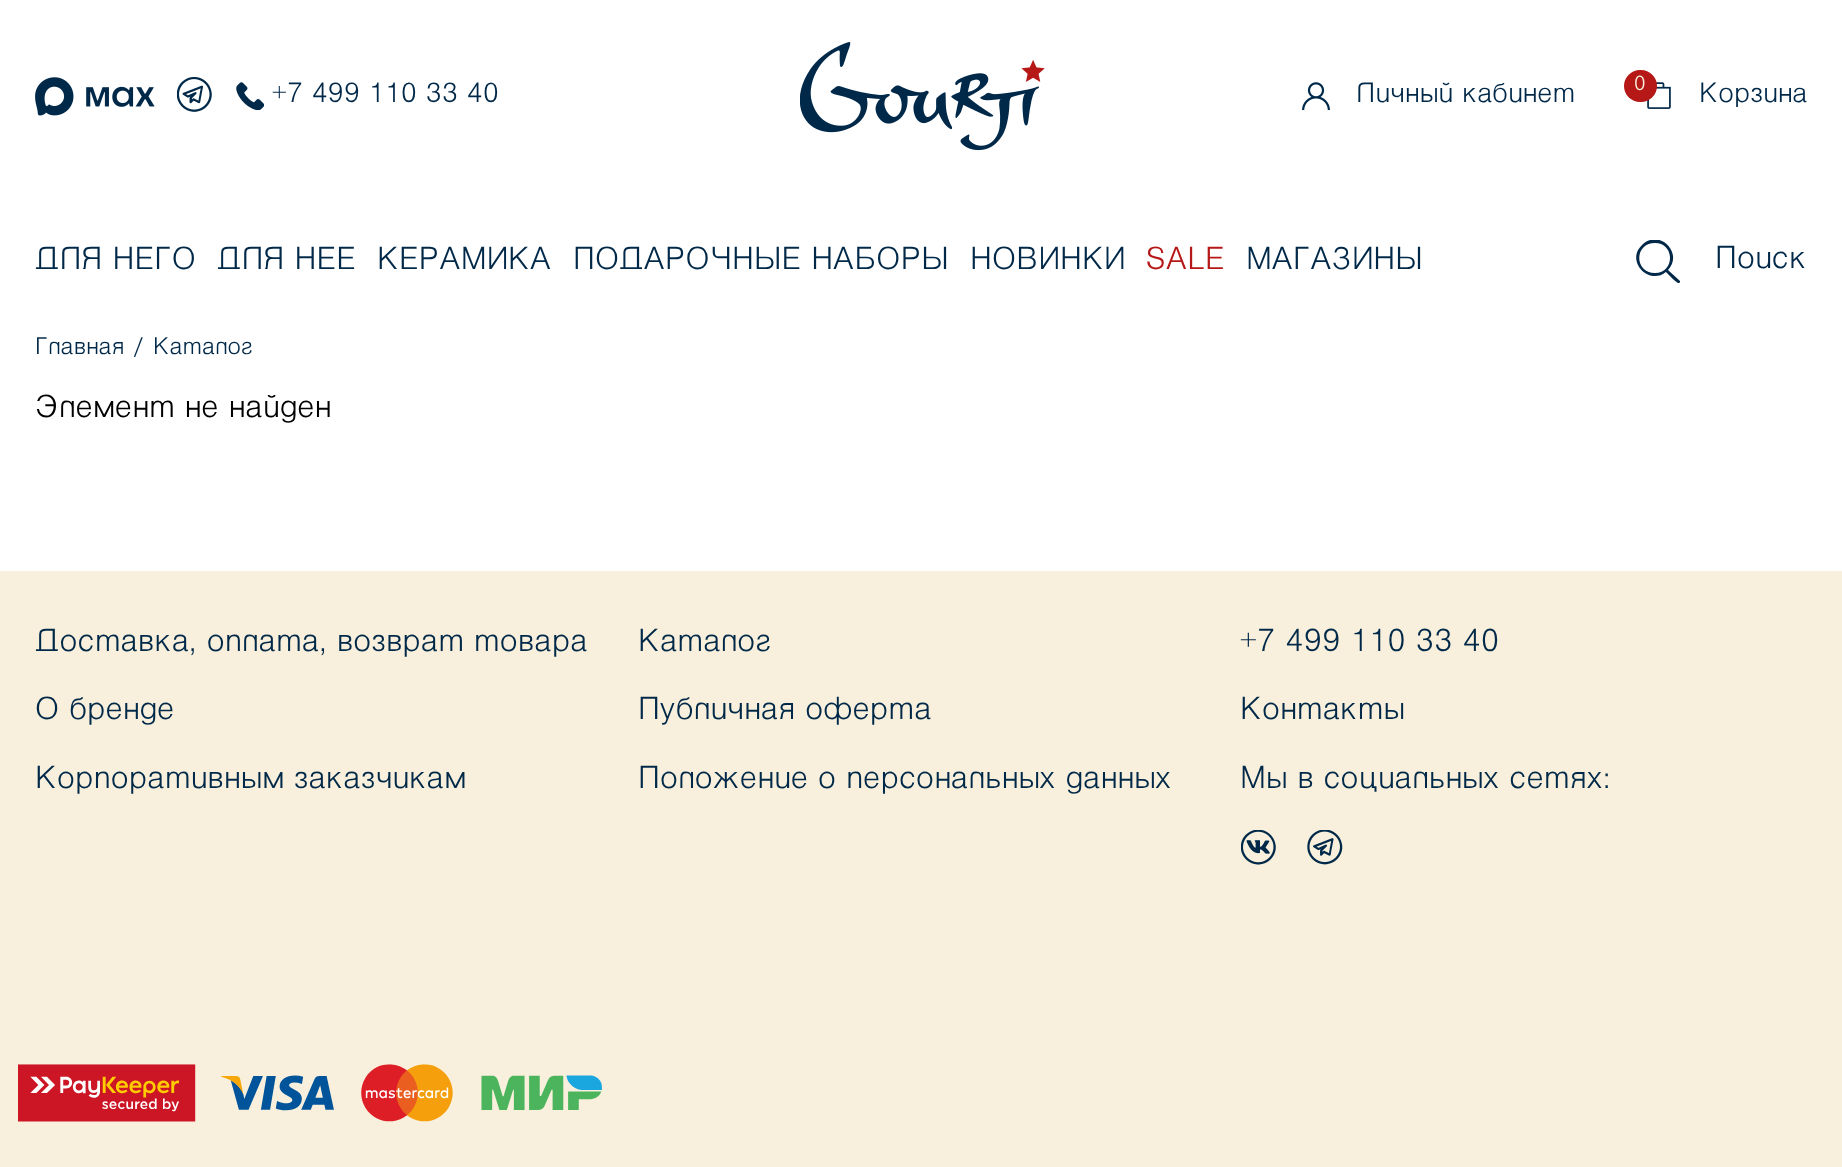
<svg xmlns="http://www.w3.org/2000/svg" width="1842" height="1167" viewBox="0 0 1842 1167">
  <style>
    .t1 { font: 300 24.5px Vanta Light; fill: #002848; }
    .t2 { font: 300 18px Vanta Light; fill: #f8f0dc; }
    .t3 { font: 300 28px Vanta Light; fill: #002848; }
    .t4 { font: 300 28px Vanta Light; fill: #b51817; }
    .t5 { font: 300 21px Vanta Light; fill: #002848; }
    .t6 { font: 300 28px Vanta Light; fill: #000; }
  </style>
  <defs>
    <clipPath id="clip1"><rect x="1636" y="240" width="44" height="44"/></clipPath>
  </defs>
  <rect width="100%" height="100%" fill="#fff"/>
  <image x="35" y="77" width="120" height="39" href="images/1.png"/>
  <image x="177" y="77" width="35" height="35" href="images/2.png"/>
  <image x="236" y="82" width="28" height="28" href="images/3.png"/>
  <text x="272" y="102" class="t1">+7 499 110 33 40</text>
  <image x="800" y="42" width="245" height="109" href="images/4.png"/>
  <image x="1302" y="82" width="28" height="28" href="images/5.png"/>
  <text x="1356" y="102" class="t1">Личный кабинет</text>
  <image x="1647" y="82" width="24" height="27" href="images/6.png"/>
  <rect x="1624" y="70" width="33" height="32" rx="16" fill="#b51817"/>
  <text x="1634" y="90" class="t2">0</text>
  <text x="1699" y="102" class="t1">Корзина</text>
  <text x="35" y="269" class="t3">ДЛЯ НЕГО</text>
  <text x="217" y="269" class="t3">ДЛЯ НЕЕ</text>
  <text x="377" y="269" class="t3">КЕРАМИКА</text>
  <text x="573" y="269" class="t3">ПОДАРОЧНЫЕ НАБОРЫ</text>
  <text x="970" y="269" class="t3">НОВИНКИ</text>
  <text x="1146" y="269" class="t4">SALE</text>
  <text x="1246" y="269" class="t3">МАГАЗИНЫ</text>
  <g clip-path="url(#clip1)">
    <path d="M1680 281L1668 270C1684 253 1659 228 1642 245C1625 261 1649 286 1666 272C1668 274 1677 284 1679 283C1680 283 1680 282 1680 281ZM1655 273C1634 273 1634 243 1655 243C1675 243 1675 273 1655 273Z" fill="#002848"/>
  </g>
  <text x="1715" y="268" class="t3">Поиск</text>
  <text x="35" y="354" class="t5">Главная</text>
  <text x="133" y="354" class="t5">/</text>
  <text x="153" y="354" class="t5">Каталог</text>
  <text x="35" y="417" class="t6">Элемент не найден</text>
  <rect x="0" y="571" width="1842" height="596" fill="#f8f0dc"/>
  <text x="35" y="651" class="t3">Доставка, оплата, возврат товара</text>
  <text x="35" y="719" class="t3">О бренде</text>
  <text x="35" y="788" class="t3">Корпоративным заказчикам</text>
  <text x="638" y="651" class="t3">Каталог</text>
  <text x="638" y="719" class="t3">Публичная оферта</text>
  <text x="638" y="788" class="t3">Положение о персональных данных</text>
  <text x="1240" y="651" class="t3">+7 499 110 33 40</text>
  <text x="1240" y="719" class="t3">Контакты</text>
  <text x="1240" y="788" class="t3">Мы в социальных сетях:</text>
  <image x="1241" y="830" width="35" height="35" href="images/7.png"/>
  <image x="1307" y="830" width="36" height="35" href="images/8.png"/>
  <image x="18" y="1064" width="584" height="58" href="images/9.png"/>
</svg>
